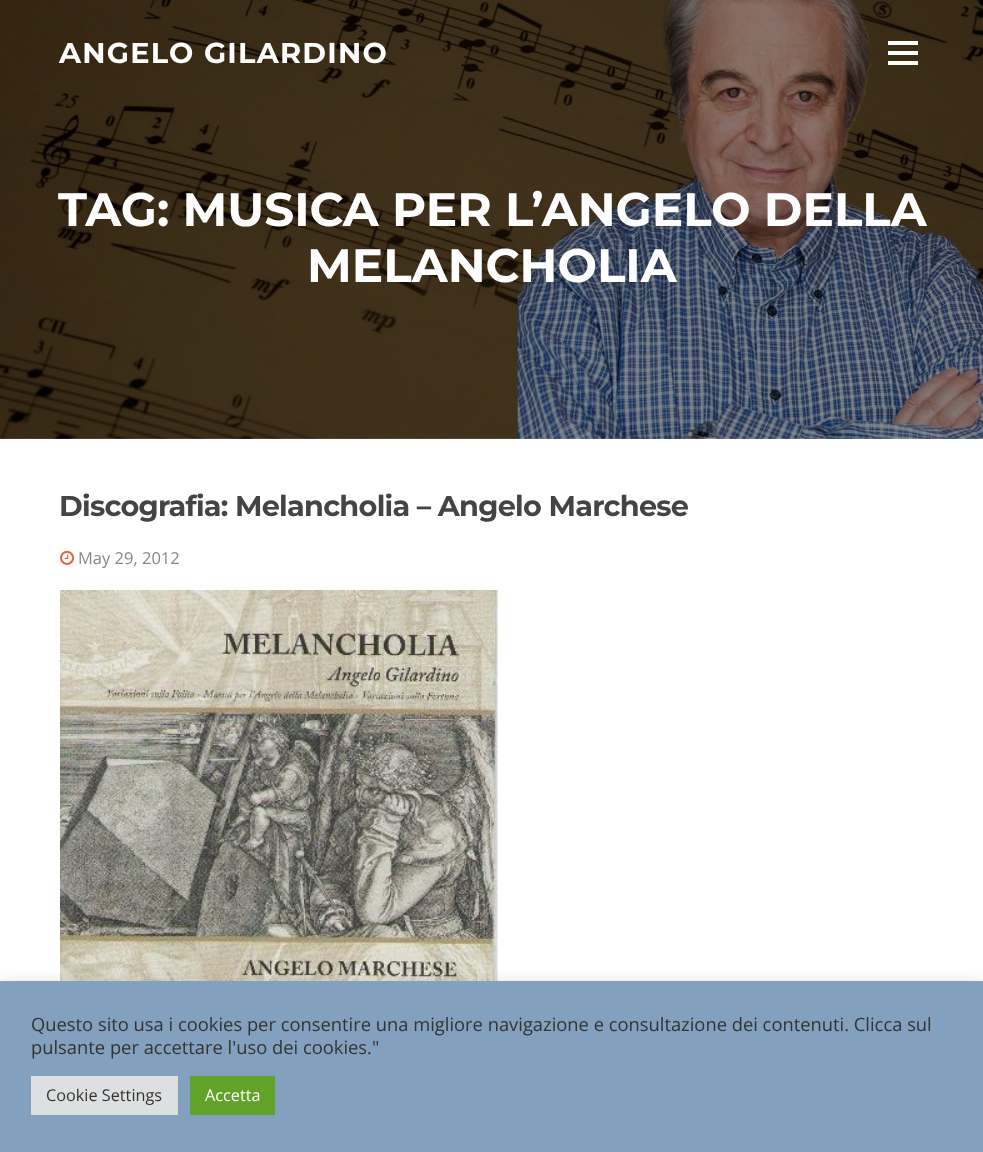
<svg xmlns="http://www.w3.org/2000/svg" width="983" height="1152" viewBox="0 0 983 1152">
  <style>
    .t1 { font: bold 28.75px Montserrat; letter-spacing: 1.25px; fill: #fff; }
    .t2 { font: bold 46.9px Montserrat; fill: #fff; }
    .t3 { font: bold 28.75px Montserrat; letter-spacing: -0.75px; fill: #444; }
    .t4 { font: 16.5px Open Sans; fill: #888; }
    .t5 { font: 18.35px Open Sans; fill: #333; }
    .t6 { font: 16.25px Open Sans; fill: #333; }
    .t7 { font: 16.25px Open Sans; fill: #fff; }
  </style>
  <rect width="100%" height="100%" fill="#fff"/>
  <image x="0" y="0" width="983" height="439" href="images/1.png"/>
  <text x="59" y="63" class="t1">ANGELO GILARDINO</text>
  <rect x="888" y="51" width="30" height="4" fill="#fff"/>
  <rect x="888" y="41" width="30" height="4" fill="#fff"/>
  <rect x="888" y="61" width="30" height="4" fill="#fff"/>
  <text x="58" y="226" class="t2">TAG: MUSICA PER L’ANGELO DELLA</text>
  <text x="307" y="282" class="t2">MELANCHOLIA</text>
  <text x="59" y="516" class="t3">Discografia: Melancholia – Angelo Marchese</text>
  <image x="60" y="550" width="14" height="15" href="images/2.png"/>
  <text x="78" y="564" class="t4">May 29, 2012</text>
  <image x="60" y="590" width="438" height="391" href="images/3.png"/>
  <rect x="0" y="980" width="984" height="171" fill="#acabab4d" filter="blur(6px)"/>
  <rect x="0" y="981" width="983" height="171" fill="#83a1bf"/>
  <text x="31" y="1031" class="t5">Questo sito usa i cookies per consentire una migliore navigazione e consultazione dei contenuti. Clicca sul</text>
  <text x="31" y="1054" class="t5">pulsante per accettare l'uso dei cookies."</text>
  <rect x="31" y="1076" width="147" height="39" fill="#dedfe0"/>
  <text x="46" y="1101" class="t6">Cookie Settings</text>
  <rect x="190" y="1076" width="85" height="39" fill="#61a229"/>
  <text x="205" y="1101" class="t7">Accetta</text>
</svg>
